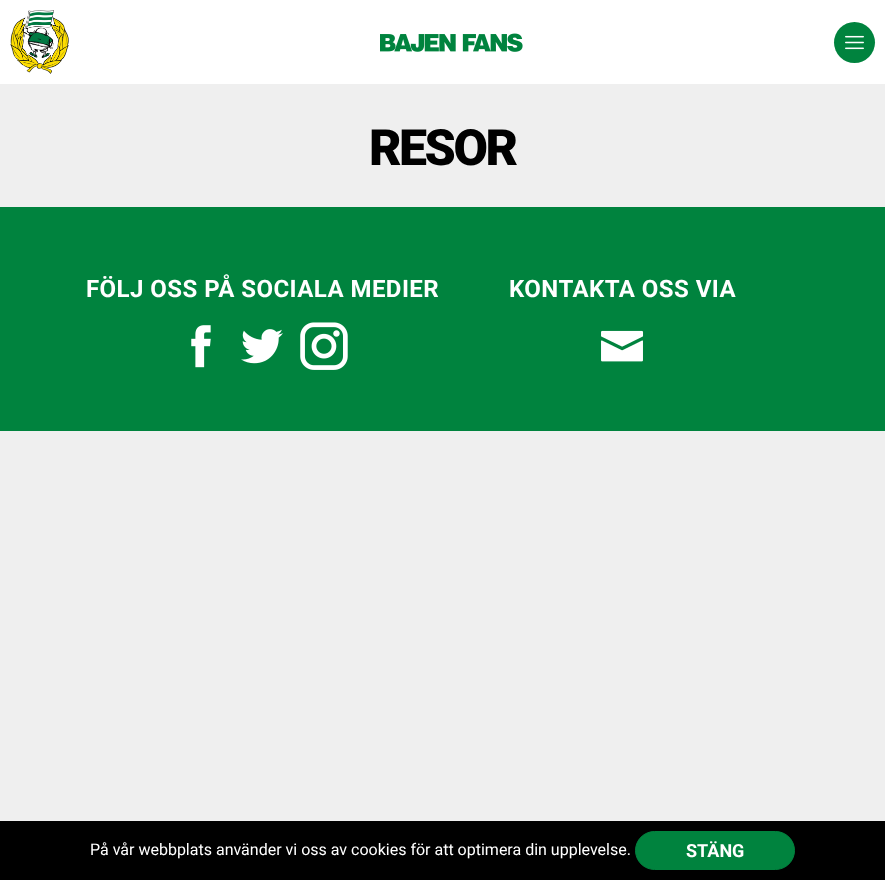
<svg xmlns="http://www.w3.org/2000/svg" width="885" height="880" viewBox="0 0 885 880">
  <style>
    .t1 { font: 900 50px Roboto; letter-spacing: -2.5px; fill: #000; }
    .t2 { font: bold 24px Roboto; letter-spacing: 0.45px; fill: #fff; }
    .t3 { font: 16px Roboto; fill: #fff; }
    .t4 { font: bold 18px Roboto; fill: #fff; }
  </style>
  <rect width="100%" height="100%" fill="#efefef"/>
  <rect x="0" y="0" width="885" height="84" fill="#fff"/>
  <image x="10" y="10" width="59" height="64" href="images/1.png"/>
  <image x="380" y="33" width="143" height="19" href="images/2.png"/>
  <circle cx="854.5" cy="42.5" r="20.5" fill="#00833e"/>
  <image x="845" y="35" width="19" height="15" href="images/3.png"/>
  <text x="369" y="165" class="t1">RESOR</text>
  <rect x="0" y="207" width="885" height="224" fill="#00833e"/>
  <text x="86" y="297" class="t2">FÖLJ OSS PÅ SOCIALA MEDIER</text>
  <image x="191" y="325" width="20" height="43" href="images/4.png"/>
  <image x="241" y="329" width="42" height="35" href="images/5.png"/>
  <image x="300" y="322" width="48" height="48" href="images/6.png"/>
  <text x="509" y="297" class="t2">KONTAKTA OSS VIA</text>
  <image x="601" y="330" width="43" height="32" href="images/7.png"/>
  <rect x="0" y="821" width="885" height="59" fill="#000"/>
  <text x="90" y="855" class="t3">På vår webbplats använder vi oss av cookies för att optimera din upplevelse.</text>
  <rect x="635.5" y="831.5" width="159" height="38" rx="19" fill="#00833e" stroke="#00833e"/>
  <text x="686" y="857" class="t4">STÄNG</text>
</svg>
